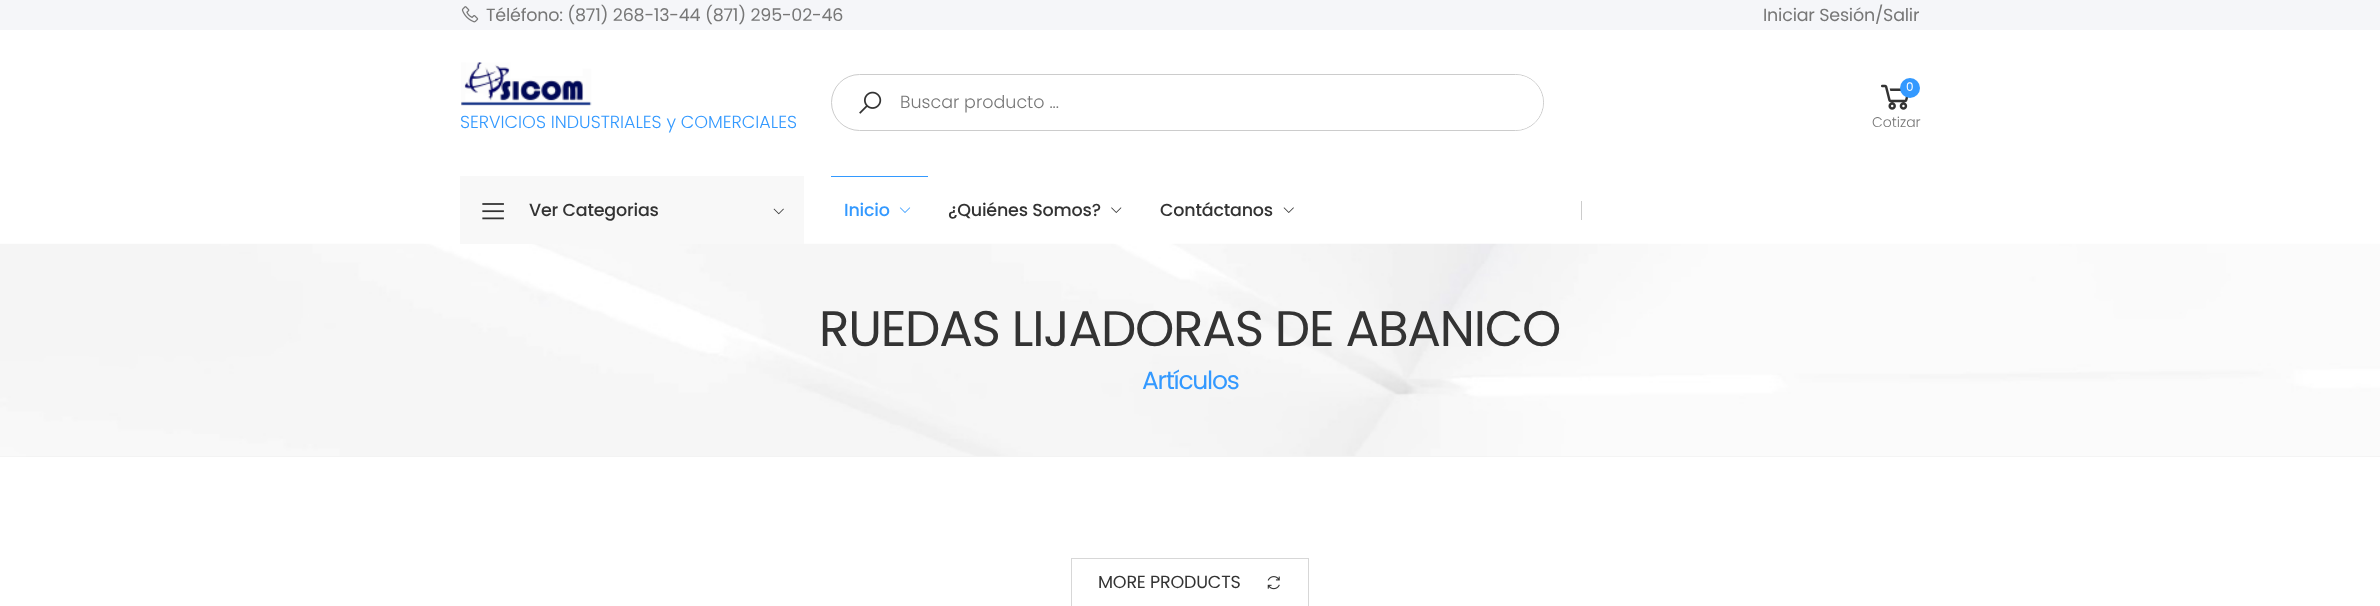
<svg xmlns="http://www.w3.org/2000/svg" width="2380" height="606" viewBox="0 0 2380 606">
  <style>
    .t1 { font: 17.5px Poppins; letter-spacing: -0.2px; fill: #777; }
    .t2 { font: 300 17.5px Poppins; fill: #777; }
    .t3 { font: 12px Poppins; fill: #fff; }
    .t4 { font: 300 14px Poppins; fill: #777; }
    .t5 { font: 300 17.5px Poppins; fill: #39f; }
    .t6 { font: 500 17.5px Poppins; letter-spacing: -0.2px; fill: #333; }
    .t7 { font: 500 17.5px Poppins; letter-spacing: -0.2px; fill: #39f; }
    .t8 { font: 50px Poppins; letter-spacing: -1.25px; fill: #333; }
    .t9 { font: 25px Poppins; letter-spacing: -1.25px; fill: #39f; }
    .t10 { font: 17.5px Poppins; letter-spacing: -0.2px; fill: #333; }
  </style>
  <rect width="100%" height="100%" fill="#fff"/>
  <rect x="0" y="0" width="2380" height="30" fill="#f5f6f9"/>
  <image x="461" y="6" width="18" height="17" href="images/1.png"/>
  <text x="486" y="21" class="t1">Téléfono: (871) 268-13-44 (871) 295-02-46</text>
  <text x="1763" y="21" class="t1">Iniciar Sesión/Salir</text>
  <rect x="831.5" y="74.5" width="712" height="56" rx="28" fill="none" stroke="#ccc"/>
  <image x="859" y="91" width="23" height="23" href="images/2.png"/>
  <rect x="894" y="75" width="649" height="55" rx="27.5" fill="#fff"/>
  <text x="900" y="108" class="t2">Buscar producto ...</text>
  <image x="1881" y="84" width="28" height="26" href="images/3.png"/>
  <circle cx="1910" cy="88" r="10" fill="#39f"/>
  <text x="1906" y="91" class="t3">0</text>
  <text x="1872" y="127" class="t4">Cotizar</text>
  <image x="461" y="62" width="131" height="44" href="images/4.png"/>
  <text x="460" y="128" class="t5">SERVICIOS INDUSTRIALES y COMERCIALES</text>
  <image x="0" y="243" width="2380" height="214" href="images/10.png"/>
  <rect x="460" y="176" width="344" height="68" fill="#f8f8f8"/>
  <image x="482" y="203" width="22" height="17" href="images/5.png"/>
  <text x="529" y="216" class="t6">Ver Categorias</text>
  <image x="773" y="208" width="11" height="7" href="images/6.png"/>
  <rect x="831" y="176" width="97" height="1" fill="#39f"/>
  <text x="844" y="216" class="t7">Inicio</text>
  <image x="899" y="207" width="12" height="6" href="images/7.png"/>
  <text x="948" y="216" class="t6">¿Quiénes Somos?</text>
  <image x="1111" y="207" width="11" height="6" href="images/8.png"/>
  <text x="1160" y="216" class="t6">Contáctanos</text>
  <image x="1283" y="207" width="11" height="6" href="images/9.png"/>
  <rect x="1581" y="201" width="1" height="19" fill="#ccc"/>
  <text x="819" y="346" class="t8">RUEDAS LIJADORAS DE ABANICO</text>
  <text x="1142" y="389" class="t9">Artículos</text>
  <rect x="0" y="456" width="2380" height="1" fill="#ebebeb8c"/>
  <rect x="1071.5" y="558.5" width="237" height="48" fill="none" stroke="#d7d7d7"/>
  <text x="1098" y="588" class="t10">MORE PRODUCTS</text>
  <image x="1267" y="576" width="13" height="14" href="images/11.png"/>
</svg>
